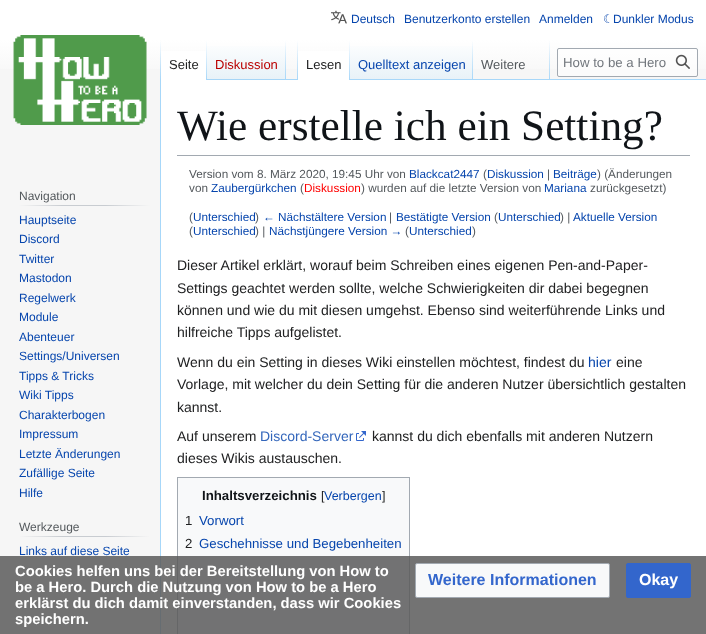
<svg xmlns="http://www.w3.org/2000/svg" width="706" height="634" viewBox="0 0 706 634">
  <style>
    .t1 { font: 12px Liberation Sans; fill: #0645ad; }
    .t2 { font: 12px DejaVu Sans; fill: #0645ad; }
    .t3 { font: 13px Liberation Sans; fill: #202122; }
    .t4 { font: 13px Liberation Sans; fill: #ba0000; }
    .t5 { font: 13px Liberation Sans; fill: #0645ad; }
    .t6 { font: 13px Liberation Sans; fill: #54595d; }
    .t7 { font: 13.25px Liberation Sans; fill: #72777d; }
    .t8 { font: 12px Liberation Sans; fill: #54595d; }
    .t9 { font: 43.25px Liberation Serif; fill: #101418; }
    .t10 { font: 11.75px Liberation Sans; fill: #54595d; }
    .t11 { font: 11.75px Liberation Sans; fill: #0645ad; }
    .t12 { font: 11.75px Liberation Sans; fill: #f00; }
    .t13 { font: 14px Liberation Sans; fill: #202122; }
    .t14 { font: 14px Liberation Sans; fill: #0645ad; }
    .t15 { font: 14px Liberation Sans; fill: #36b; }
    .t16 { font: bold 13.25px Liberation Sans; fill: #101418; }
    .t17 { font: 12.5px Liberation Sans; fill: #202122; }
    .t18 { font: 12.5px Liberation Sans; fill: #0645ad; }
    .t19 { font: 13.25px Liberation Sans; fill: #202122; }
    .t20 { font: 13.25px Liberation Sans; fill: #0645ad; }
    .t21 { font: bold 14.75px Liberation Sans; fill: #fff; }
    .t22 { font: bold 16px Liberation Sans; fill: #36c; }
    .t23 { font: bold 16px Liberation Sans; fill: #fff; }
  </style>
  <defs>
    <linearGradient id="g1" gradientUnits="userSpaceOnUse" x1="353" y1="0" x2="353" y2="80"><stop offset="0.5" stop-color="#fff"/><stop offset="1" stop-color="#f6f6f6"/></linearGradient>
    <linearGradient id="g2" gradientUnits="userSpaceOnUse" x1="161" y1="40" x2="161" y2="80"><stop offset="0" stop-color="#a7d7f9" stop-opacity="0"/><stop offset="1" stop-color="#a7d7f9"/></linearGradient>
    <linearGradient id="g3" gradientUnits="userSpaceOnUse" x1="207" y1="40" x2="207" y2="80"><stop offset="0" stop-color="#fff"/><stop offset="1" stop-color="#a7d7f9"/></linearGradient>
    <linearGradient id="g4" gradientUnits="userSpaceOnUse" x1="247" y1="80" x2="247" y2="40"><stop offset="0" stop-color="#77c1f6"/><stop offset="0.03" stop-color="#e8f2f8"/><stop offset="1" stop-color="#fff"/></linearGradient>
    <linearGradient id="g5" gradientUnits="userSpaceOnUse" x1="286" y1="40" x2="286" y2="80"><stop offset="0" stop-color="#a7d7f9" stop-opacity="0"/><stop offset="1" stop-color="#a7d7f9"/></linearGradient>
    <linearGradient id="g6" gradientUnits="userSpaceOnUse" x1="298" y1="40" x2="298" y2="80"><stop offset="0" stop-color="#a7d7f9" stop-opacity="0"/><stop offset="1" stop-color="#a7d7f9"/></linearGradient>
    <linearGradient id="g7" gradientUnits="userSpaceOnUse" x1="350" y1="40" x2="350" y2="80"><stop offset="0" stop-color="#fff"/><stop offset="1" stop-color="#a7d7f9"/></linearGradient>
    <linearGradient id="g8" gradientUnits="userSpaceOnUse" x1="412" y1="80" x2="412" y2="40"><stop offset="0" stop-color="#77c1f6"/><stop offset="0.03" stop-color="#e8f2f8"/><stop offset="1" stop-color="#fff"/></linearGradient>
    <linearGradient id="g9" gradientUnits="userSpaceOnUse" x1="473" y1="40" x2="473" y2="80"><stop offset="0" stop-color="#a7d7f9" stop-opacity="0"/><stop offset="1" stop-color="#a7d7f9"/></linearGradient>
    <linearGradient id="g10" gradientUnits="userSpaceOnUse" x1="550" y1="40" x2="550" y2="80"><stop offset="0" stop-color="#a7d7f9" stop-opacity="0"/><stop offset="1" stop-color="#a7d7f9"/></linearGradient>
    <linearGradient id="g11" gradientUnits="userSpaceOnUse" x1="19" y1="206" x2="150" y2="206"><stop offset="0" stop-color="#f6f6f6"/><stop offset="0.33" stop-color="#c8ccd1"/><stop offset="0.66" stop-color="#c8ccd1"/><stop offset="1" stop-color="#f6f6f6"/></linearGradient>
    <linearGradient id="g12" gradientUnits="userSpaceOnUse" x1="19" y1="537" x2="150" y2="537"><stop offset="0" stop-color="#f6f6f6"/><stop offset="0.33" stop-color="#c8ccd1"/><stop offset="0.66" stop-color="#c8ccd1"/><stop offset="1" stop-color="#f6f6f6"/></linearGradient>
  </defs>
  <rect width="100%" height="100%" fill="#f6f6f6"/>
  <rect x="0" y="0" width="706" height="69" fill="url(#g1)"/>
  <image x="331" y="10" width="16" height="14" href="images/1.png"/>
  <text x="351" y="23" class="t1">Deutsch</text>
  <text x="404" y="23" class="t1">Benutzerkonto erstellen</text>
  <text x="539" y="23" class="t1">Anmelden</text>
  <text x="603" y="23" class="t2">☾</text>
  <text x="613" y="23" class="t1">Dunkler Modus</text>
  <rect x="160" y="79" width="1" height="555" fill="#a7d7f9"/>
  <rect x="160" y="40" width="1" height="40" fill="url(#g2)"/>
  <rect x="161" y="51" width="45" height="29" fill="#fff"/>
  <rect x="206" y="40" width="1" height="40" fill="url(#g3)"/>
  <text x="169" y="69" class="t3">Seite</text>
  <rect x="207" y="46" width="79" height="34" fill="url(#g4)"/>
  <rect x="285" y="40" width="1" height="40" fill="url(#g5)"/>
  <text x="215" y="69" class="t4">Diskussion</text>
  <rect x="286" y="79" width="420" height="1" fill="#a7d7f9"/>
  <rect x="297" y="40" width="1" height="40" fill="url(#g6)"/>
  <rect x="298" y="51" width="51" height="29" fill="#fff"/>
  <rect x="349" y="40" width="1" height="40" fill="url(#g7)"/>
  <text x="306" y="69" class="t3">Lesen</text>
  <rect x="350" y="46" width="123" height="33" fill="url(#g8)"/>
  <rect x="472" y="40" width="1" height="40" fill="url(#g9)"/>
  <text x="358" y="69" class="t5">Quelltext anzeigen</text>
  <rect x="549" y="40" width="1" height="40" fill="url(#g10)"/>
  <text x="481" y="69" class="t6">Weitere</text>
  <rect x="557.5" y="48.5" width="140" height="28" rx="1.5" fill="#ffffff80" stroke="#a2a9b1"/>
  <text x="563" y="67" class="t7">How to be a Hero</text>
  <image x="675" y="54" width="15" height="15" href="images/2.png"/>
  <image x="13" y="35" width="134" height="90" href="images/3.png"/>
  <rect x="19" y="205" width="131" height="1" fill="url(#g11)"/>
  <text x="19" y="200" class="t8">Navigation</text>
  <text x="19" y="224" class="t1">Hauptseite</text>
  <text x="19" y="243" class="t1">Discord</text>
  <text x="19" y="263" class="t1">Twitter</text>
  <text x="19" y="282" class="t1">Mastodon</text>
  <text x="19" y="302" class="t1">Regelwerk</text>
  <text x="19" y="321" class="t1">Module</text>
  <text x="19" y="341" class="t1">Abenteuer</text>
  <text x="19" y="360" class="t1">Settings/Universen</text>
  <text x="19" y="380" class="t1">Tipps &amp; Tricks</text>
  <text x="19" y="399" class="t1">Wiki Tipps</text>
  <text x="19" y="419" class="t1">Charakterbogen</text>
  <text x="19" y="438" class="t1">Impressum</text>
  <text x="19" y="458" class="t1">Letzte Änderungen</text>
  <text x="19" y="477" class="t1">Zufällige Seite</text>
  <text x="19" y="497" class="t1">Hilfe</text>
  <rect x="19" y="536" width="131" height="1" fill="url(#g12)"/>
  <text x="19" y="531" class="t8">Werkzeuge</text>
  <text x="19" y="555" class="t1">Links auf diese Seite</text>
  <rect x="161" y="80" width="545" height="554" fill="#fff"/>
  <rect x="177" y="155" width="513" height="1" fill="#a2a9b1"/>
  <text x="177" y="140" class="t9">Wie erstelle ich ein Setting?</text>
  <text x="189" y="178" class="t10">Version vom 8. März 2020, 19:45 Uhr von</text>
  <text x="409" y="178" class="t11">Blackcat2447</text>
  <text x="483" y="178" class="t10">(</text>
  <text x="487" y="178" class="t11">Diskussion</text>
  <text x="547" y="178" class="t10">|</text>
  <text x="553" y="178" class="t11">Beiträge</text>
  <text x="597" y="178" class="t10">) (Änderungen</text>
  <text x="189" y="192" class="t10">von</text>
  <text x="211" y="192" class="t11">Zaubergürkchen</text>
  <text x="300" y="192" class="t10">(</text>
  <text x="304" y="192" class="t12">Diskussion</text>
  <text x="361" y="192" class="t10">) wurden auf die letzte Version von</text>
  <text x="544" y="192" class="t11">Mariana</text>
  <text x="590" y="192" class="t10">zurückgesetzt)</text>
  <text x="189" y="221" class="t10">(</text>
  <text x="193" y="221" class="t11">Unterschied</text>
  <text x="255" y="221" class="t10">)</text>
  <text x="263" y="221" class="t11">← Nächstältere Version</text>
  <text x="389" y="221" class="t10">|</text>
  <text x="396" y="221" class="t11">Bestätigte Version</text>
  <text x="494" y="221" class="t10">(</text>
  <text x="498" y="221" class="t11">Unterschied</text>
  <text x="560" y="221" class="t10">) |</text>
  <text x="573" y="221" class="t11">Aktuelle Version</text>
  <text x="189" y="235" class="t10">(</text>
  <text x="193" y="235" class="t11">Unterschied</text>
  <text x="255" y="235" class="t10">) |</text>
  <text x="269" y="235" class="t11">Nächstjüngere Version →</text>
  <text x="405" y="235" class="t10">(</text>
  <text x="409" y="235" class="t11">Unterschied</text>
  <text x="472" y="235" class="t10">)</text>
  <text x="177" y="270" class="t13">Dieser Artikel erklärt, worauf beim Schreiben eines eigenen Pen-and-Paper-</text>
  <text x="177" y="293" class="t13">Settings geachtet werden sollte, welche Schwierigkeiten dir dabei begegnen</text>
  <text x="177" y="315" class="t13">können und wie du mit diesen umgehst. Ebenso sind weiterführende Links und</text>
  <text x="177" y="337" class="t13">hilfreiche Tipps aufgelistet.</text>
  <text x="177" y="367" class="t13">Wenn du ein Setting in dieses Wiki einstellen möchtest, findest du</text>
  <text x="588" y="367" class="t14">hier</text>
  <text x="616" y="367" class="t13">eine</text>
  <text x="177" y="389" class="t13">Vorlage, mit welcher du dein Setting für die anderen Nutzer übersichtlich gestalten</text>
  <text x="177" y="412" class="t13">kannst.</text>
  <text x="177" y="441" class="t13">Auf unserem</text>
  <text x="260" y="441" class="t15">Discord-Server</text>
  <image x="356" y="431" width="10" height="10" href="images/4.png"/>
  <text x="372" y="441" class="t13">kannst du dich ebenfalls mit anderen Nutzern</text>
  <text x="177" y="463" class="t13">dieses Wikis austauschen.</text>
  <rect x="177.5" y="477.5" width="232" height="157" fill="#f8f9fa" stroke="#a2a9b1"/>
  <text x="202" y="500" class="t16">Inhaltsverzeichnis</text>
  <text x="321" y="500" class="t17">[</text>
  <text x="324" y="500" class="t18">Verbergen</text>
  <text x="382" y="500" class="t17">]</text>
  <text x="185" y="525" class="t19">1</text>
  <text x="199" y="525" class="t20">Vorwort</text>
  <text x="185" y="548" class="t19">2</text>
  <text x="199" y="548" class="t20">Geschehnisse und Begebenheiten</text>
  <rect x="0" y="556" width="706" height="78" fill="#5a5a5ad9"/>
  <text x="15" y="576" class="t21">Cookies helfen uns bei der Bereitstellung von How to</text>
  <text x="15" y="592" class="t21">be a Hero. Durch die Nutzung von How to be a Hero</text>
  <text x="15" y="608" class="t21">erklärst du dich damit einverstanden, dass wir Cookies</text>
  <text x="15" y="624" class="t21">speichern.</text>
  <rect x="415.5" y="563.5" width="194" height="34" rx="1.5" fill="#f8f9fa" stroke="#a2a9b1"/>
  <text x="428" y="585" class="t22">Weitere Informationen</text>
  <rect x="626.5" y="563.5" width="64" height="34" rx="1.5" fill="#36c" stroke="#36c"/>
  <text x="639" y="585" class="t23">Okay</text>
</svg>
